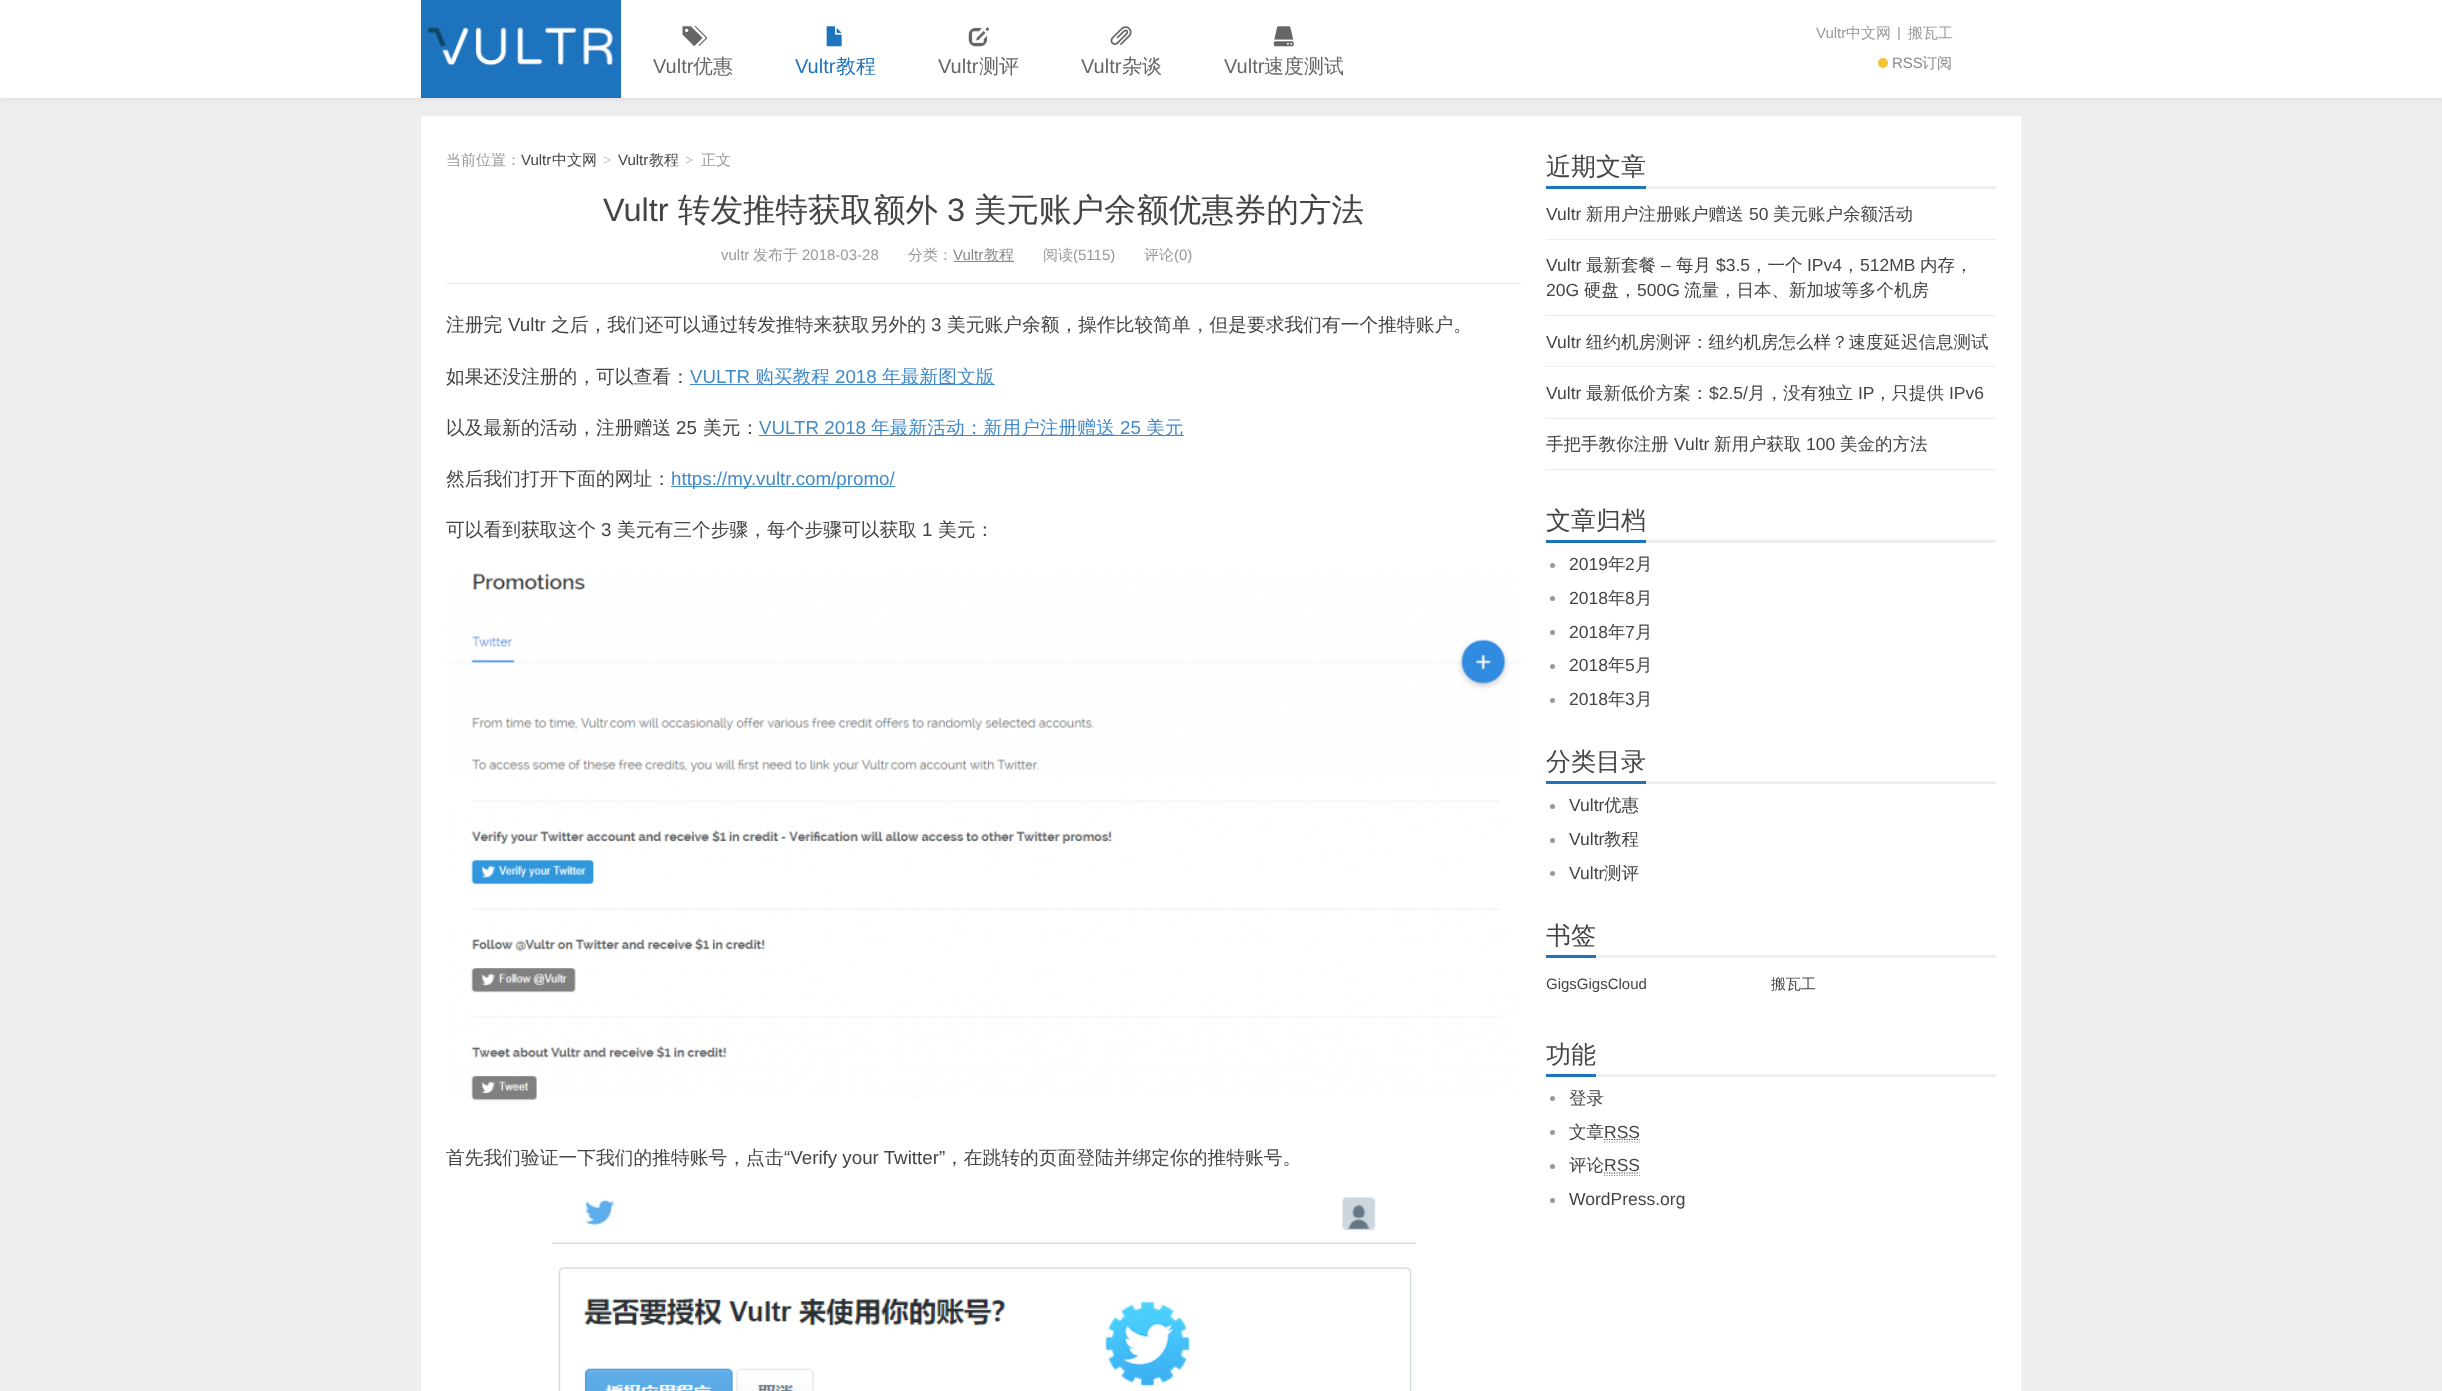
<svg xmlns="http://www.w3.org/2000/svg" width="2442" height="1391" viewBox="0 0 2442 1391">
  <style>
    .t1 { font: 15px Liberation Sans; fill: #999; }
    .t2 { font: 500 15px WenQuanYi Zen Hei; fill: #999; }
    .t3 { font: 20px Liberation Sans; fill: #666; }
    .t4 { font: 500 20px WenQuanYi Zen Hei; fill: #666; }
    .t5 { font: 20px Liberation Sans; fill: #1e73be; }
    .t6 { font: 500 20px WenQuanYi Zen Hei; fill: #1e73be; }
    .t7 { font: 15px Liberation Sans; fill: #888; }
    .t8 { font: 500 15px WenQuanYi Zen Hei; fill: #888; }
    .t9 { font: 15px Liberation Sans; fill: #444; }
    .t10 { font: 500 15px WenQuanYi Zen Hei; fill: #444; }
    .t11 { font: bold 15px Liberation Serif; fill: #bbb; }
    .t12 { font: 32.5px Liberation Sans; fill: #444; }
    .t13 { font: 500 32.5px WenQuanYi Zen Hei; fill: #444; }
    .t14 { font: 500 18.75px WenQuanYi Zen Hei; fill: #444; }
    .t15 { font: 18.75px Liberation Sans; fill: #444; }
    .t16 { font: 18.75px Liberation Sans; fill: #428bca; }
    .t17 { font: 500 18.75px WenQuanYi Zen Hei; fill: #428bca; }
    .t18 { font: 500 25px WenQuanYi Zen Hei; fill: #444; }
    .t19 { font: 17.5px Liberation Sans; fill: #444; }
    .t20 { font: 500 17.5px WenQuanYi Zen Hei; fill: #444; }
  </style>
  <defs>
    <clipPath id="clip1"><rect x="1810" y="25" width="149" height="15"/></clipPath>
  </defs>
  <rect width="100%" height="100%" fill="#eee"/>
  <rect x="1" y="1" width="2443" height="98" fill="#00000014" filter="blur(3px)"/>
  <rect x="0" y="0" width="2442" height="98" fill="#fff"/>
  <rect x="421" y="0" width="200" height="98" fill="#1e73be"/>
  <image x="427" y="27" width="187" height="39" href="images/1.png"/>
  <text x="1816" y="38" class="t1">Vultr</text>
  <text x="1846" y="38" class="t2">中文网</text>
  <g clip-path="url(#clip1)">
    <text x="1897" y="38" class="t1">|</text>
  </g>
  <text x="1908" y="38" class="t2">搬瓦工</text>
  <image x="682" y="26" width="26" height="21" href="images/2.png"/>
  <text x="653" y="73" class="t3">Vultr</text>
  <text x="693" y="73" class="t4">优惠</text>
  <image x="826" y="26" width="16" height="21" href="images/3.png"/>
  <text x="795" y="73" class="t5">Vultr</text>
  <text x="836" y="73" class="t6">教程</text>
  <image x="968" y="27" width="21" height="20" href="images/4.png"/>
  <text x="938" y="73" class="t3">Vultr</text>
  <text x="979" y="73" class="t4">测评</text>
  <image x="1110" y="26" width="22" height="20" href="images/5.png"/>
  <text x="1081" y="73" class="t3">Vultr</text>
  <text x="1122" y="73" class="t4">杂谈</text>
  <image x="1273" y="26" width="21" height="21" href="images/6.png"/>
  <text x="1224" y="73" class="t3">Vultr</text>
  <text x="1264" y="73" class="t4">速度测试</text>
  <circle cx="1883" cy="63" r="5" fill="#f4c237"/>
  <text x="1892" y="68" class="t7">RSS</text>
  <text x="1922" y="68" class="t8">订阅</text>
  <rect x="421" y="116" width="1600" height="1275" fill="#fff"/>
  <rect x="446" y="283" width="1075" height="1" fill="#eee"/>
  <text x="446" y="165" class="t2">当前位置：</text>
  <text x="521" y="165" class="t9">Vultr</text>
  <text x="552" y="165" class="t10">中文网</text>
  <text x="603" y="165" class="t11">&gt;</text>
  <text x="618" y="165" class="t9">Vultr</text>
  <text x="649" y="165" class="t10">教程</text>
  <text x="685" y="165" class="t11">&gt;</text>
  <text x="701" y="165" class="t2">正文</text>
  <text x="603" y="221" class="t12">Vultr</text>
  <text x="678" y="221" class="t13">转发推特获取额外</text>
  <text x="947" y="221" class="t12">3</text>
  <text x="974" y="221" class="t13">美元账户余额优惠券的方法</text>
  <text x="721" y="260" class="t1">vultr</text>
  <text x="753" y="260" class="t2">发布于</text>
  <text x="802" y="260" class="t1">2018-03-28</text>
  <text x="908" y="260" class="t2">分类：</text>
  <text x="953" y="260" class="t7">Vultr</text>
  <rect x="954" y="261" width="60" height="1" fill="#888"/>
  <text x="984" y="260" class="t8">教程</text>
  <text x="1043" y="260" class="t2">阅读</text>
  <text x="1073" y="260" class="t1">(5115)</text>
  <text x="1144" y="260" class="t2">评论</text>
  <text x="1174" y="260" class="t1">(0)</text>
  <text x="446" y="331" class="t14">注册完</text>
  <text x="508" y="331" class="t15">Vultr</text>
  <text x="551" y="331" class="t14">之后，我们还可以通过转发推特来获取另外的</text>
  <text x="931" y="331" class="t15">3</text>
  <text x="947" y="331" class="t14">美元账户余额，操作比较简单，但是要求我们有一个推特账户。</text>
  <text x="446" y="383" class="t14">如果还没注册的，可以查看：</text>
  <text x="690" y="383" class="t16">VULTR</text>
  <rect x="690" y="384" width="305" height="1" fill="#428bca"/>
  <text x="755" y="383" class="t17">购买教程</text>
  <text x="835" y="383" class="t16">2018</text>
  <text x="882" y="383" class="t17">年最新图文版</text>
  <text x="446" y="434" class="t14">以及最新的活动，注册赠送</text>
  <text x="676" y="434" class="t15">25</text>
  <text x="703" y="434" class="t14">美元：</text>
  <text x="759" y="434" class="t16">VULTR 2018</text>
  <rect x="759" y="435" width="425" height="1" fill="#428bca"/>
  <text x="871" y="434" class="t17">年最新活动：新用户注册赠送</text>
  <text x="1120" y="434" class="t16">25</text>
  <text x="1146" y="434" class="t17">美元</text>
  <text x="446" y="485" class="t14">然后我们打开下面的网址：</text>
  <rect x="671" y="486" width="224" height="1" fill="#428bca"/>
  <text x="671" y="485" class="t16">https://my.vultr.com/promo/</text>
  <text x="446" y="536" class="t14">可以看到获取这个</text>
  <text x="601" y="536" class="t15">3</text>
  <text x="617" y="536" class="t14">美元有三个步骤，每个步骤可以获取</text>
  <text x="922" y="536" class="t15">1</text>
  <text x="938" y="536" class="t14">美元：</text>
  <image x="446" y="573" width="1075" height="528" href="images/7.png"/>
  <text x="446" y="1164" class="t14">首先我们验证一下我们的推特账号，点击</text>
  <text x="784" y="1164" class="t15">“Verify your Twitter”</text>
  <text x="945" y="1164" class="t14">，在跳转的页面登陆并绑定你的推特账号。</text>
  <image x="552" y="1197" width="865" height="194" href="images/8.png"/>
  <rect x="1646" y="186" width="350" height="3" fill="#eee"/>
  <rect x="1546" y="186" width="100" height="3" fill="#1e73be"/>
  <text x="1546" y="175" class="t18">近期文章</text>
  <rect x="1546" y="239" width="450" height="1" fill="#eee"/>
  <text x="1546" y="220" class="t19">Vultr</text>
  <text x="1586" y="220" class="t20">新用户注册账户赠送</text>
  <text x="1749" y="220" class="t19">50</text>
  <text x="1773" y="220" class="t20">美元账户余额活动</text>
  <rect x="1546" y="315" width="450" height="1" fill="#eee"/>
  <text x="1546" y="271" class="t19">Vultr</text>
  <text x="1586" y="271" class="t20">最新套餐</text>
  <text x="1661" y="271" class="t19">–</text>
  <text x="1676" y="271" class="t20">每月</text>
  <text x="1716" y="271" class="t19">$3.5</text>
  <text x="1750" y="271" class="t20">，一个</text>
  <text x="1807" y="271" class="t19">IPv4</text>
  <text x="1860" y="271" class="t19">512MB</text>
  <text x="1920" y="271" class="t20">内存，</text>
  <text x="1842" y="271" class="t20">，</text>
  <text x="1546" y="296" class="t19">20G</text>
  <text x="1584" y="296" class="t20">硬盘，</text>
  <text x="1637" y="296" class="t19">500G</text>
  <text x="1684" y="296" class="t20">流量，日本、新加坡等多个机房</text>
  <rect x="1546" y="366" width="450" height="1" fill="#eee"/>
  <text x="1546" y="348" class="t19">Vultr</text>
  <text x="1586" y="348" class="t20">纽约机房测评：纽约机房怎么样？速度延迟信息测试</text>
  <rect x="1546" y="418" width="450" height="1" fill="#eee"/>
  <text x="1546" y="399" class="t19">Vultr</text>
  <text x="1586" y="399" class="t20">最新低价方案：</text>
  <text x="1709" y="399" class="t19">$2.5/</text>
  <text x="1748" y="399" class="t20">月，没有独立</text>
  <text x="1858" y="399" class="t19">IP</text>
  <text x="1874" y="399" class="t20">，只提供</text>
  <text x="1949" y="399" class="t19">IPv6</text>
  <rect x="1546" y="469" width="450" height="1" fill="#eee"/>
  <text x="1546" y="450" class="t20">手把手教你注册</text>
  <text x="1674" y="450" class="t19">Vultr</text>
  <text x="1714" y="450" class="t20">新用户获取</text>
  <text x="1806" y="450" class="t19">100</text>
  <text x="1840" y="450" class="t20">美金的方法</text>
  <rect x="1646" y="540" width="350" height="3" fill="#eee"/>
  <rect x="1546" y="540" width="100" height="3" fill="#1e73be"/>
  <text x="1546" y="529" class="t18">文章归档</text>
  <circle cx="1552.5" cy="565.5" r="2.5" fill="#999"/>
  <text x="1569" y="570" class="t19">2019</text>
  <text x="1608" y="570" class="t20">年</text>
  <text x="1625" y="570" class="t19">2</text>
  <text x="1635" y="570" class="t20">月</text>
  <circle cx="1552.5" cy="598.5" r="2.5" fill="#999"/>
  <text x="1569" y="604" class="t19">2018</text>
  <text x="1608" y="604" class="t20">年</text>
  <text x="1625" y="604" class="t19">8</text>
  <text x="1635" y="604" class="t20">月</text>
  <circle cx="1552.5" cy="632.5" r="2.5" fill="#999"/>
  <text x="1569" y="638" class="t19">2018</text>
  <text x="1608" y="638" class="t20">年</text>
  <text x="1625" y="638" class="t19">7</text>
  <text x="1635" y="638" class="t20">月</text>
  <circle cx="1552.5" cy="666.5" r="2.5" fill="#999"/>
  <text x="1569" y="671" class="t19">2018</text>
  <text x="1608" y="671" class="t20">年</text>
  <text x="1625" y="671" class="t19">5</text>
  <text x="1635" y="671" class="t20">月</text>
  <circle cx="1552.5" cy="700.5" r="2.5" fill="#999"/>
  <text x="1569" y="705" class="t19">2018</text>
  <text x="1608" y="705" class="t20">年</text>
  <text x="1625" y="705" class="t19">3</text>
  <text x="1635" y="705" class="t20">月</text>
  <rect x="1646" y="781" width="350" height="3" fill="#eee"/>
  <rect x="1546" y="781" width="100" height="3" fill="#1e73be"/>
  <text x="1546" y="770" class="t18">分类目录</text>
  <circle cx="1552.5" cy="806.5" r="2.5" fill="#999"/>
  <text x="1569" y="811" class="t19">Vultr</text>
  <text x="1604" y="811" class="t20">优惠</text>
  <circle cx="1552.5" cy="840.5" r="2.5" fill="#999"/>
  <text x="1569" y="845" class="t19">Vultr</text>
  <text x="1604" y="845" class="t20">教程</text>
  <circle cx="1552.5" cy="873.5" r="2.5" fill="#999"/>
  <text x="1569" y="879" class="t19">Vultr</text>
  <text x="1604" y="879" class="t20">测评</text>
  <rect x="1596" y="955" width="400" height="3" fill="#eee"/>
  <rect x="1546" y="955" width="50" height="3" fill="#1e73be"/>
  <text x="1546" y="944" class="t18">书签</text>
  <text x="1546" y="989" class="t9">GigsGigsCloud</text>
  <text x="1771" y="989" class="t10">搬瓦工</text>
  <rect x="1596" y="1074" width="400" height="3" fill="#eee"/>
  <rect x="1546" y="1074" width="50" height="3" fill="#1e73be"/>
  <text x="1546" y="1063" class="t18">功能</text>
  <circle cx="1552.5" cy="1098.5" r="2.5" fill="#999"/>
  <text x="1569" y="1104" class="t20">登录</text>
  <circle cx="1552.5" cy="1132.5" r="2.5" fill="#999"/>
  <text x="1569" y="1138" class="t20">文章</text>
  <path d="M1604 1142H1640" fill="none" stroke="#999" stroke-width="1.2" stroke-dasharray="1.25 1.25"/>
  <path d="M1604 1139.5H1639.5" fill="none" stroke="#444" stroke-width="1.2" stroke-dasharray="1.25 1.25"/>
  <text x="1604" y="1138" class="t19">RSS</text>
  <circle cx="1552.5" cy="1166.5" r="2.5" fill="#999"/>
  <text x="1569" y="1171" class="t20">评论</text>
  <path d="M1604 1175.5H1640" fill="none" stroke="#999" stroke-width="1.2" stroke-dasharray="1.25 1.25"/>
  <path d="M1604 1173H1639.5" fill="none" stroke="#444" stroke-width="1.2" stroke-dasharray="1.25 1.25"/>
  <text x="1604" y="1171" class="t19">RSS</text>
  <circle cx="1552.5" cy="1200.5" r="2.5" fill="#999"/>
  <text x="1569" y="1205" class="t19">WordPress.org</text>
</svg>
